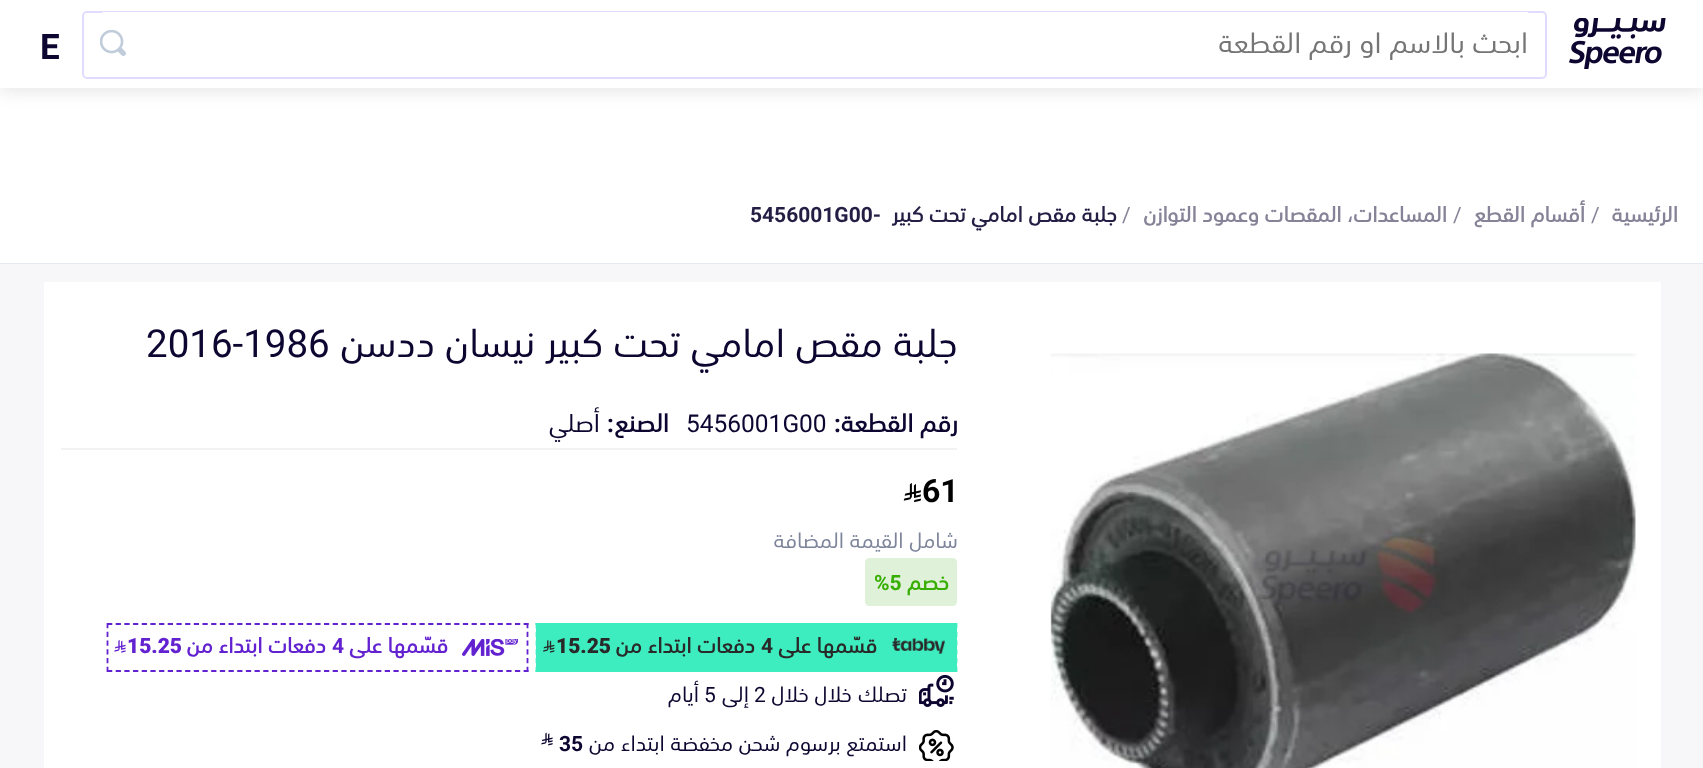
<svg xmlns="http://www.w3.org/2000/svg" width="1703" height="768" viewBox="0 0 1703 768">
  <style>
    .t1 { font: 28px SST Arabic; direction: rtl; fill: #757575; }
    .t2 { font: bold 35px Roboto; fill: #0d0630; }
    .t3 { font: bold 21px SST Arabic; direction: rtl; fill: #868297; }
    .t4 { font: 21px Roboto; fill: #868297; }
    .t5 { font: bold 21px SST Arabic; direction: rtl; fill: #251e44; }
    .t6 { font: bold 21px Roboto; fill: #251e44; }
    .t7 { font: 38.5px SST Arabic; direction: rtl; fill: #0d0630; }
    .t8 { font: 38.5px Roboto; fill: #0d0630; }
    .t9 { font: bold 24.5px SST Arabic; direction: rtl; fill: #0d0630; }
    .t10 { font: bold 24.5px Roboto; direction: rtl; fill: #0d0630; }
    .t11 { font: 24.5px Roboto; fill: #0d0630; }
    .t12 { font: 24.5px SST Arabic; direction: rtl; fill: #0d0630; }
    .t13 { font: bold 32px Roboto; fill: #000; }
    .t14 { font: 21px SST Arabic; direction: rtl; fill: #7e859b; }
    .t15 { font: bold 21px SST Arabic; direction: rtl; fill: #37ae02; }
    .t16 { font: bold 21px Roboto; fill: #37ae02; }
    .t17 { font: bold 21px SST Arabic; direction: rtl; fill: #292929; }
    .t18 { font: bold 21px Roboto; fill: #292929; }
    .t19 { font: 900 21px Roboto; fill: #292929; }
    .t20 { font: bold 21px SST Arabic; direction: rtl; fill: #6322d0; }
    .t21 { font: bold 21px Roboto; fill: #6322d0; }
    .t22 { font: 900 21px Roboto; fill: #6322d0; }
    .t23 { font: 21px SST Arabic; direction: rtl; fill: #0d0630; }
    .t24 { font: 21px Roboto; fill: #0d0630; }
    .t25 { font: bold 21px Roboto; fill: #0d0630; }
  </style>
  <rect width="100%" height="100%" fill="#fff"/>
  <rect x="0" y="4" width="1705" height="87" fill="#0000001a" filter="blur(9px)"/>
  <rect x="0" y="0" width="1703" height="88" fill="#fff"/>
  <image x="1568" y="18" width="98" height="51" href="images/1.png"/>
  <rect x="83" y="12" width="1463" height="66" rx="4" fill="none" stroke="#e1dcff" stroke-width="2"/>
  <rect x="102" y="12" width="1426" height="1" fill="#fff"/>
  <text x="1528" y="53" class="t1">ابحث بالاسم او رقم القطعة</text>
  <image x="100" y="30" width="26" height="26" href="images/2.png"/>
  <text x="40" y="59" class="t2">E</text>
  <rect x="0" y="263" width="1703" height="1" fill="#e5e9f2"/>
  <text x="1678" y="222" class="t3">الرئيسية</text>
  <text x="1591" y="222" class="t4">/</text>
  <text x="1585" y="222" class="t3">أقسام القطع</text>
  <text x="1453" y="222" class="t4">/</text>
  <text x="1447" y="222" class="t3">المساعدات، المقصات وعمود التوازن</text>
  <text x="1122" y="222" class="t4">/</text>
  <text x="1117" y="222" class="t5">جلبة مقص امامي تحت كبير</text>
  <text x="750" y="222" class="t6">5456001G00-</text>
  <rect x="0" y="264" width="1703" height="504" fill="#f7f7fa"/>
  <rect x="44" y="282" width="1617" height="486" fill="#fff"/>
  <image x="1050" y="353" width="587" height="415" href="images/3.png"/>
  <text x="958" y="357" class="t7">جلبة مقص امامي تحت كبير نيسان ددسن</text>
  <text x="146" y="357" class="t8">2016-1986</text>
  <rect x="61" y="448" width="896" height="2" fill="#f2f2f2"/>
  <text x="958" y="432" class="t9">رقم القطعة</text>
  <text x="841" y="432" class="t10">:</text>
  <text x="686" y="432" class="t11">5456001G00</text>
  <text x="669" y="432" class="t9">الصنع</text>
  <text x="614" y="432" class="t10">:</text>
  <text x="600" y="432" class="t12">أصلي</text>
  <text x="922" y="502" class="t13">61</text>
  <image x="903" y="483" width="18" height="20" href="images/4.png"/>
  <text x="958" y="548" class="t14">شامل القيمة المضافة</text>
  <path d="M901 558H953C955 558 957 560 957 562V602C957 604 955 606 953 606H901Z" fill="#dff1d9"/>
  <text x="949" y="590" class="t15">خصم</text>
  <path d="M869 558H889V606H869C867 606 865 604 865 602V562C865 560 867 558 869 558Z" fill="#dff1d9"/>
  <rect x="889" y="558" width="12" height="48" fill="#dff1d9"/>
  <text x="874" y="590" class="t16">%5</text>
  <rect x="536" y="623" width="421" height="49" fill="#3eedbf"/>
  <path d="M535.5 624H957" fill="none" stroke="#3eedbf" stroke-width="1.8" stroke-dasharray="5.25 3.43"/>
  <path d="M956.5 623V672" fill="none" stroke="#3eedbf" stroke-width="1.8" stroke-dasharray="5.25 3.5"/>
  <path d="M535.5 671H957" fill="none" stroke="#3eedbf" stroke-width="1.8" stroke-dasharray="5.25 3.43"/>
  <path d="M536.5 623V672" fill="none" stroke="#3eedbf" stroke-width="1.8" stroke-dasharray="5.25 3.5"/>
  <image x="892" y="637" width="53" height="17" href="images/5.png"/>
  <text x="877" y="653" class="t17">قسّمها على</text>
  <text x="761" y="653" class="t18">4</text>
  <text x="755" y="653" class="t17">دفعات ابتداء من</text>
  <text x="556" y="653" class="t19">15.25</text>
  <image x="543" y="639" width="12" height="14" href="images/6.png"/>
  <path d="M107 624H528.5" fill="none" stroke="#6322d0" stroke-width="1.8" stroke-dasharray="5.25 3.43"/>
  <path d="M527.5 623V672" fill="none" stroke="#6322d0" stroke-width="1.8" stroke-dasharray="5.25 3.5"/>
  <path d="M107 671H528.5" fill="none" stroke="#6322d0" stroke-width="1.8" stroke-dasharray="5.25 3.43"/>
  <path d="M107.5 623V672" fill="none" stroke="#6322d0" stroke-width="1.8" stroke-dasharray="5.25 3.5"/>
  <image x="462" y="639" width="56" height="17" href="images/7.png"/>
  <text x="448" y="653" class="t20">قسّمها على</text>
  <text x="332" y="653" class="t21">4</text>
  <text x="326" y="653" class="t20">دفعات ابتداء من</text>
  <text x="127" y="653" class="t22">15.25</text>
  <image x="114" y="639" width="12" height="14" href="images/8.png"/>
  <image x="919" y="674" width="35" height="33" href="images/9.png"/>
  <text x="907" y="702" class="t23">تصلك خلال خلال</text>
  <text x="754" y="702" class="t24">2</text>
  <text x="749" y="702" class="t23">إلى</text>
  <text x="704" y="702" class="t24">5</text>
  <text x="699" y="702" class="t23">أيام</text>
  <image x="919" y="729" width="35" height="32" href="images/10.png"/>
  <text x="907" y="751" class="t23">استمتع برسوم شحن مخفضة ابتداء من</text>
  <text x="559" y="751" class="t25">35</text>
  <image x="541" y="732" width="12" height="14" href="images/11.png"/>
</svg>
